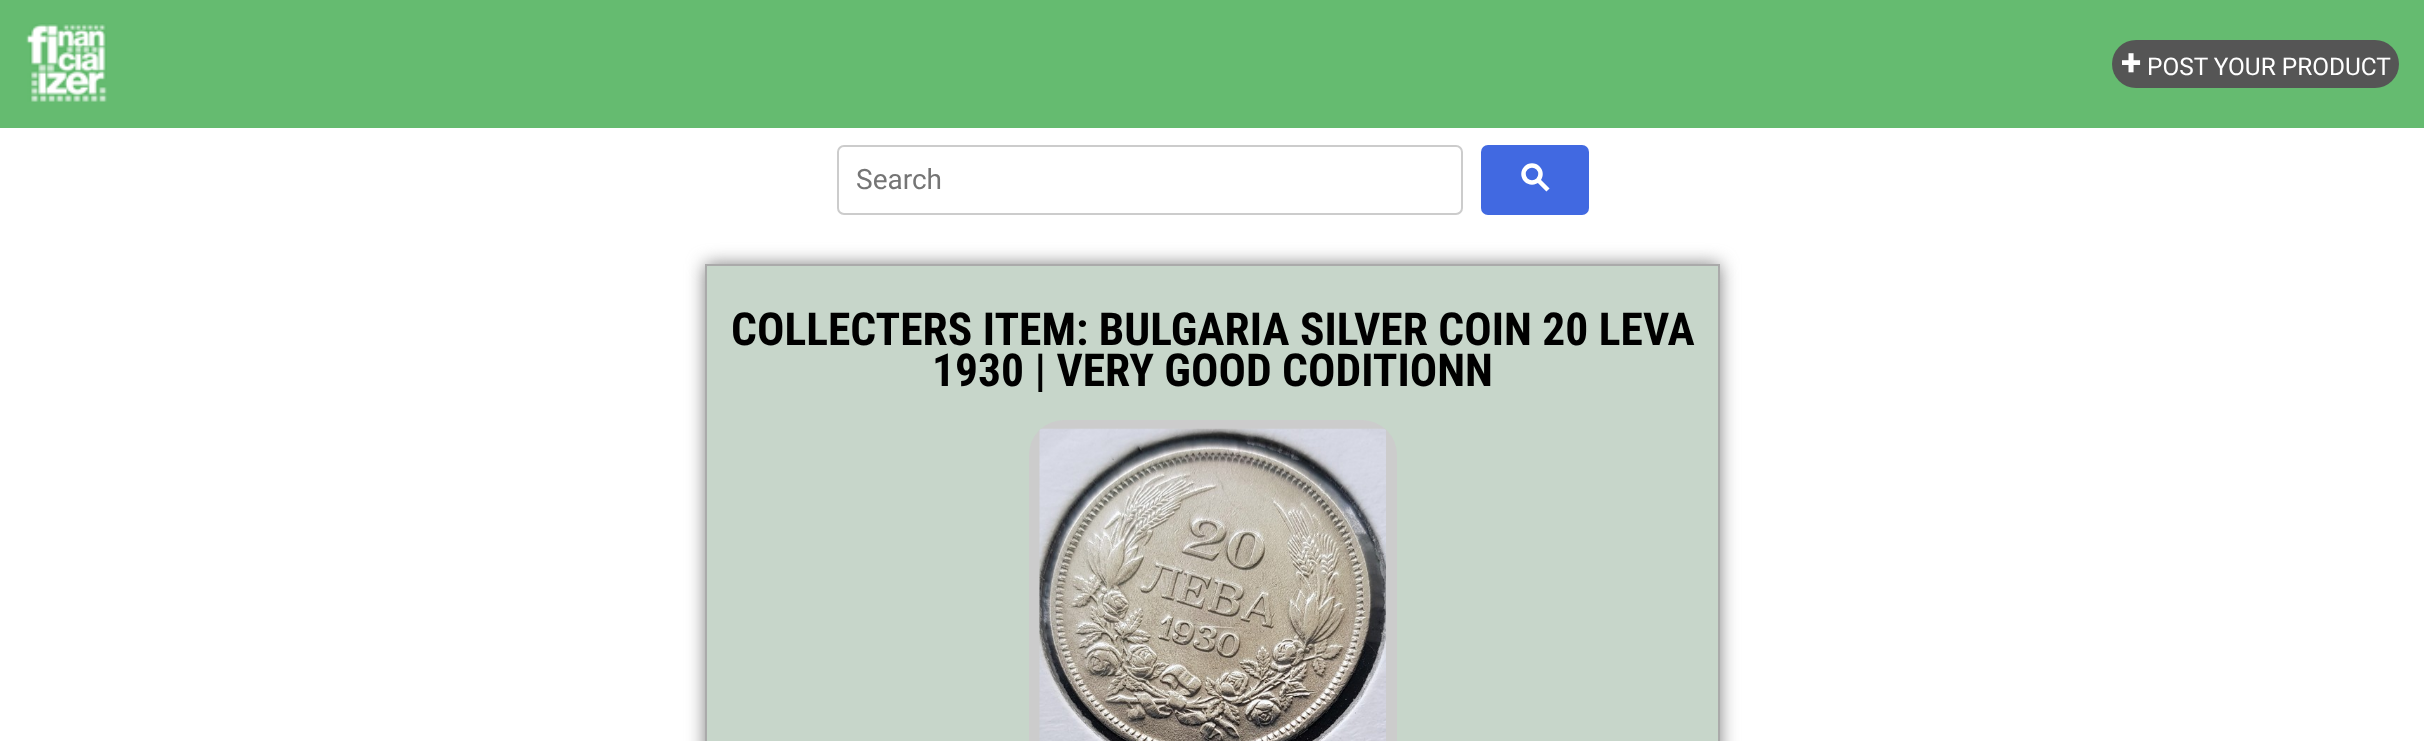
<svg xmlns="http://www.w3.org/2000/svg" width="2424" height="741" viewBox="0 0 2424 741">
  <style>
    .t1 { font: bold 37px Roboto; fill: #fff; }
    .t2 { font: 24.4px Roboto; fill: #fff; }
    .t3 { font: 28px Roboto; fill: #757575; }
    .t4 { font: bold 45.5px Roboto Condensed; fill: #000; }
  </style>
  <rect width="100%" height="100%" fill="#fff"/>
  <rect x="0" y="0" width="2424" height="128" fill="#65bb70"/>
  <image x="26" y="23" width="81" height="79" href="images/1.png"/>
  <rect x="2112" y="40" width="287" height="48" rx="24" fill="#555"/>
  <text x="2121" y="75" class="t1">+</text>
  <text x="2147" y="75" class="t2">POST YOUR PRODUCT</text>
  <rect x="838" y="146" width="624" height="68" rx="6" fill="none" stroke="#ccc" stroke-width="2"/>
  <text x="856" y="189" class="t3">Search</text>
  <rect x="1481" y="145" width="108" height="70" rx="7" fill="#4169e1"/>
  <circle cx="1532" cy="174" r="8.5" fill="none" stroke="#fff" stroke-width="4.5"/>
  <path d="M1537.5 179.5L1548 190" fill="none" stroke="#fff" stroke-width="4.5"/>
  <rect x="705" y="264" width="1015" height="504" fill="#808080" filter="blur(9px)"/>
  <rect x="706" y="265" width="1013" height="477" fill="#c7d6ca" stroke="#aaa" stroke-width="2"/>
  <text x="731" y="345" class="t4">COLLECTERS ITEM: BULGARIA SILVER COIN 20 LEVA</text>
  <text x="932" y="386" class="t4">1930 | VERY GOOD CODITIONN</text>
  <rect x="1029" y="420" width="368" height="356" rx="35" fill="#ccc"/>
  <image x="1039" y="428" width="347" height="313" href="images/2.png"/>
</svg>
